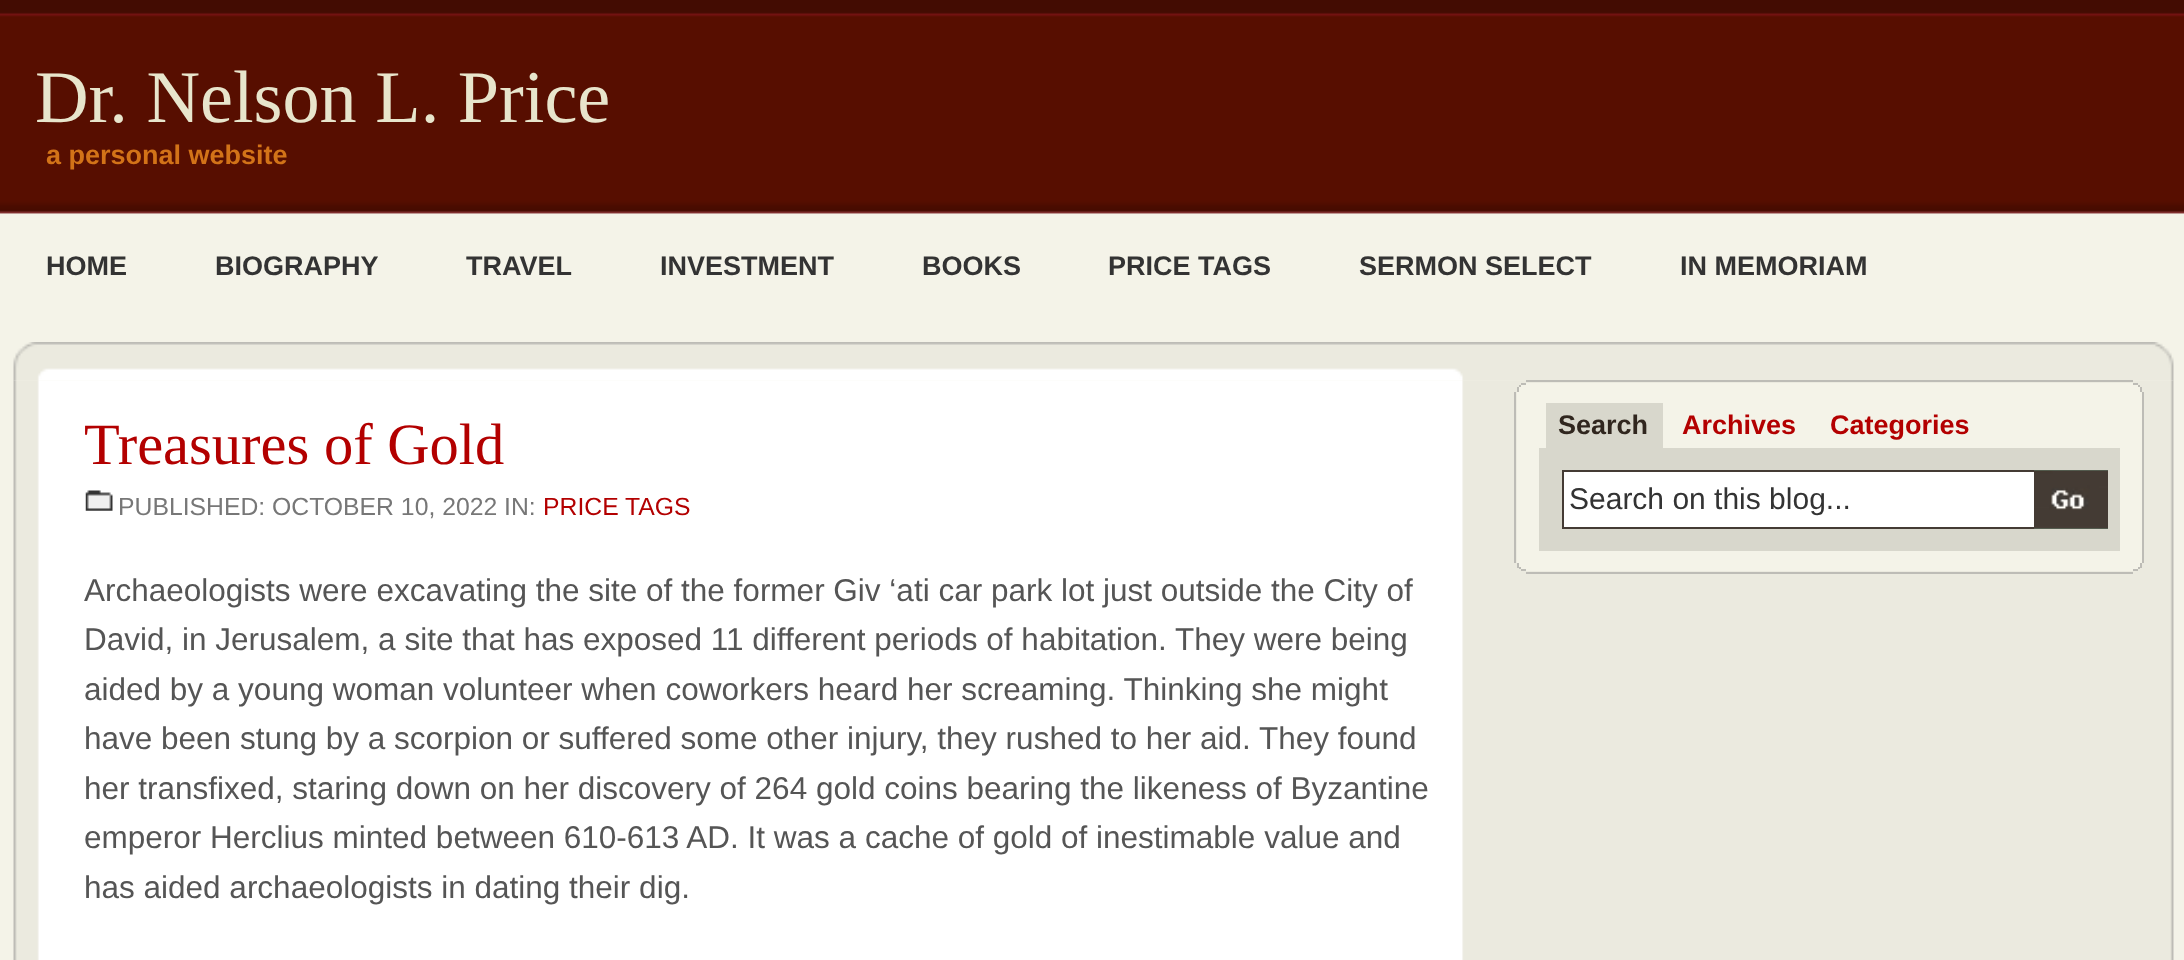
<svg xmlns="http://www.w3.org/2000/svg" width="2184" height="960" viewBox="0 0 2184 960">
  <style>
    .t1 { font: 74.25px Liberation Serif; fill: #e8e5cc; }
    .t2 { font: bold 27px Liberation Sans; fill: #d27318; }
    .t3 { font: bold 27px Liberation Sans; fill: #333; }
    .t4 { font: 58.5px Liberation Serif; fill: #b30000; }
    .t5 { font: 24.75px Liberation Sans; fill: #777; }
    .t6 { font: 24.75px Liberation Sans; fill: #b30000; }
    .t7 { font: 31.5px Liberation Sans; fill: #555; }
    .t8 { font: bold 27px Liberation Sans; fill: #30261e; }
    .t9 { font: bold 27px Liberation Sans; fill: #b30000; }
    .t10 { font: 30px Liberation Sans; fill: #333; }
  </style>
  <rect width="100%" height="100%" fill="#f4f3e8"/>
  <image x="0" y="0" width="2184" height="214" href="images/1.png"/>
  <text x="35" y="122" class="t1">Dr. Nelson L. Price</text>
  <text x="46" y="164" class="t2">a personal website</text>
  <text x="46" y="275" class="t3">HOME</text>
  <text x="215" y="275" class="t3">BIOGRAPHY</text>
  <text x="466" y="275" class="t3">TRAVEL</text>
  <text x="660" y="275" class="t3">INVESTMENT</text>
  <text x="922" y="275" class="t3">BOOKS</text>
  <text x="1108" y="275" class="t3">PRICE TAGS</text>
  <text x="1359" y="275" class="t3">SERMON SELECT</text>
  <text x="1680" y="275" class="t3">IN MEMORIAM</text>
  <image x="13" y="342" width="2161" height="39" href="images/2.png"/>
  <image x="13" y="380" width="2161" height="580" href="images/3.png"/>
  <text x="84" y="464" class="t4">Treasures of Gold</text>
  <image x="85" y="490" width="28" height="21" href="images/4.png"/>
  <text x="118" y="515" class="t5">PUBLISHED: OCTOBER 10, 2022 IN:</text>
  <text x="543" y="515" class="t6">PRICE TAGS</text>
  <text x="84" y="601" class="t7">Archaeologists were excavating the site of the former Giv ‘ati car park lot just outside the City of</text>
  <text x="84" y="650" class="t7">David, in Jerusalem, a site that has exposed 11 different periods of habitation. They were being</text>
  <text x="84" y="700" class="t7">aided by a young woman volunteer when coworkers heard her screaming. Thinking she might</text>
  <text x="84" y="749" class="t7">have been stung by a scorpion or suffered some other injury, they rushed to her aid. They found</text>
  <text x="84" y="799" class="t7">her transfixed, staring down on her discovery of 264 gold coins bearing the likeness of Byzantine</text>
  <text x="84" y="848" class="t7">emperor Herclius minted between 610-613 AD. It was a cache of gold of inestimable value and</text>
  <text x="84" y="898" class="t7">has aided archaeologists in dating their dig.</text>
  <rect x="1526" y="380" width="607" height="2" fill="#bdbcb6"/>
  <rect x="1521" y="383" width="617" height="2" fill="#f4f3e8"/>
  <rect x="2133" y="383" width="5" height="2" fill="#bdbcb6"/>
  <rect x="1521" y="383" width="5" height="2" fill="#bdbcb6"/>
  <rect x="1519" y="385" width="621" height="2" fill="#f4f3e8"/>
  <rect x="2138" y="385" width="2" height="2" fill="#bdbcb6"/>
  <rect x="1519" y="385" width="2" height="2" fill="#bdbcb6"/>
  <rect x="1517" y="387" width="625" height="180" fill="#f4f3e8"/>
  <rect x="2140" y="387" width="2" height="5" fill="#bdbcb6"/>
  <rect x="1517" y="387" width="2" height="5" fill="#bdbcb6"/>
  <rect x="2142" y="392" width="2" height="171" fill="#bdbcb6"/>
  <rect x="1514" y="392" width="2" height="171" fill="#bdbcb6"/>
  <rect x="1546" y="403" width="117" height="45" fill="#d8d7cc"/>
  <text x="1558" y="434" class="t8">Search</text>
  <text x="1682" y="434" class="t9">Archives</text>
  <text x="1830" y="434" class="t9">Categories</text>
  <rect x="1539" y="448" width="581" height="103" fill="#d8d7cc"/>
  <rect x="1564" y="472" width="470" height="55" fill="#fff"/>
  <rect x="1563" y="471" width="484" height="57" fill="none" stroke="#443b34" stroke-width="2"/>
  <text x="1569" y="509" class="t10">Search on this blog...</text>
  <rect x="2034" y="470" width="74" height="59" fill="#688670"/>
  <image x="2034" y="470" width="74" height="59" href="images/5.png"/>
  <rect x="2140" y="563" width="2" height="5" fill="#bdbcb6"/>
  <rect x="1517" y="563" width="2" height="5" fill="#bdbcb6"/>
  <rect x="1519" y="567" width="621" height="2" fill="#f4f3e8"/>
  <rect x="2138" y="567" width="2" height="2" fill="#bdbcb6"/>
  <rect x="1519" y="567" width="2" height="2" fill="#bdbcb6"/>
  <rect x="1521" y="569" width="617" height="2" fill="#f4f3e8"/>
  <rect x="2133" y="569" width="5" height="2" fill="#bdbcb6"/>
  <rect x="1521" y="569" width="5" height="2" fill="#bdbcb6"/>
  <rect x="1526" y="572" width="607" height="2" fill="#bdbcb6"/>
</svg>
